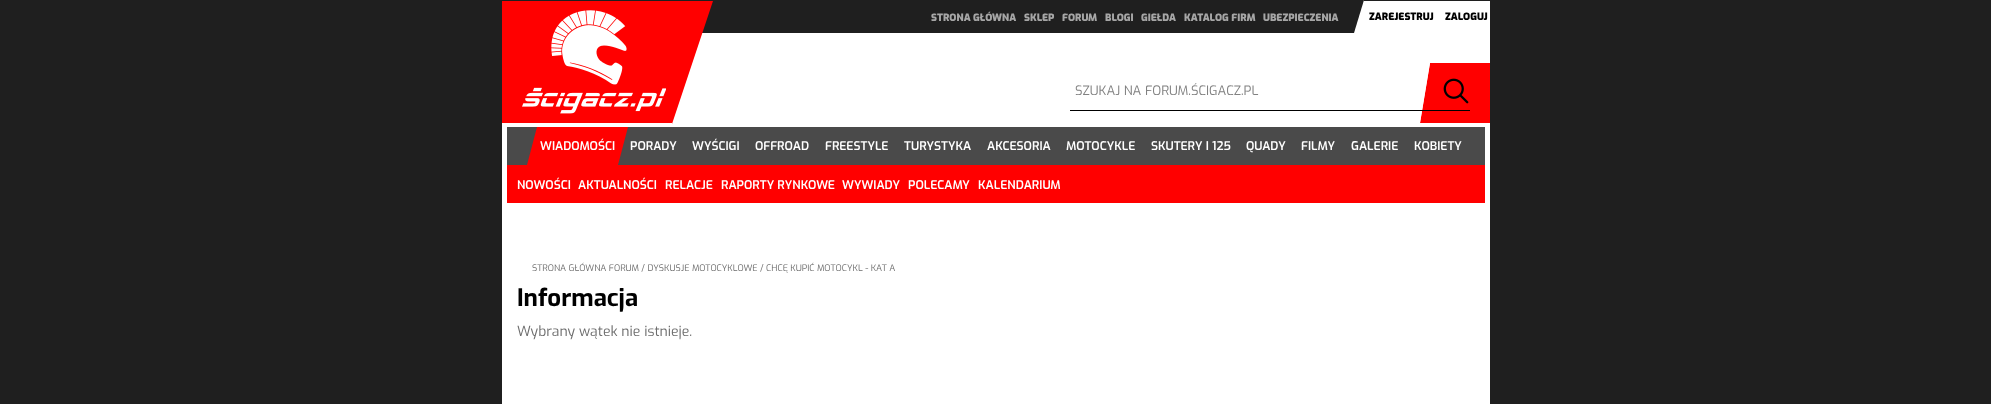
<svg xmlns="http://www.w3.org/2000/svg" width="1991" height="404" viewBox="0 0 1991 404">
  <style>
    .t1 { font: 900 10px Exo; fill: #a6a6a6; }
    .t2 { font: 900 10px Exo; fill: #000; }
    .t3 { font: 13px Exo; fill: #818181; }
    .t4 { font: 600 12px Exo; fill: #fff; }
    .t5 { font: 9px Exo; fill: #6d6d6d; }
    .t6 { font: bold 24px Exo; fill: #000; }
    .t7 { font: 14px Exo; fill: #6d6d6d; }
  </style>
  <rect width="100%" height="100%" fill="#1f1f1f"/>
  <rect x="502" y="33" width="988" height="371" fill="#fff"/>
  <rect x="502" y="1" width="170" height="122" fill="#f00"/>
  <image x="522" y="10" width="144" height="104" href="images/1.png"/>
  <path d="M672 1H713L672 124Z" fill="#f00"/>
  <text x="931" y="21" class="t1">STRONA GŁÓWNA</text>
  <text x="1024" y="21" class="t1">SKLEP</text>
  <text x="1062" y="21" class="t1">FORUM</text>
  <text x="1105" y="21" class="t1">BLOGI</text>
  <text x="1141" y="21" class="t1">GIEŁDA</text>
  <text x="1184" y="21" class="t1">KATALOG FIRM</text>
  <text x="1263" y="21" class="t1">UBEZPIECZENIA</text>
  <rect x="1364" y="1" width="126" height="32" fill="#fff"/>
  <path d="M1364 33H1354L1364 0Z" fill="#fff"/>
  <text x="1369" y="20" class="t2">ZAREJESTRUJ</text>
  <text x="1445" y="20" class="t2">ZALOGUJ</text>
  <rect x="1430" y="63" width="60" height="60" fill="#f00"/>
  <path d="M1430 123H1420L1430 63Z" fill="#f00"/>
  <path d="M1420 123V63H1430Z" fill="#fff"/>
  <rect x="1070" y="110" width="400" height="1" fill="#000"/>
  <text x="1075" y="95" class="t3">SZUKAJ NA FORUM.ŚCIGACZ.PL</text>
  <image x="1443" y="78" width="26" height="26" href="images/2.png"/>
  <rect x="507" y="127" width="978" height="38" fill="#4a4a4a"/>
  <rect x="537" y="127" width="81" height="38" fill="#f00"/>
  <path d="M537 165H527L537 127Z" fill="#f00"/>
  <text x="540" y="150" class="t4">WIADOMOŚCI</text>
  <path d="M618 127H628L618 165Z" fill="#f00"/>
  <rect x="507" y="165" width="978" height="38" fill="#f00"/>
  <text x="517" y="189" class="t4">NOWOŚCI</text>
  <text x="578" y="189" class="t4">AKTUALNOŚCI</text>
  <text x="665" y="189" class="t4">RELACJE</text>
  <text x="721" y="189" class="t4">RAPORTY RYNKOWE</text>
  <text x="842" y="189" class="t4">WYWIADY</text>
  <text x="908" y="189" class="t4">POLECAMY</text>
  <text x="978" y="189" class="t4">KALENDARIUM</text>
  <text x="630" y="150" class="t4">PORADY</text>
  <text x="692" y="150" class="t4">WYŚCIGI</text>
  <text x="755" y="150" class="t4">OFFROAD</text>
  <text x="825" y="150" class="t4">FREESTYLE</text>
  <text x="904" y="150" class="t4">TURYSTYKA</text>
  <text x="987" y="150" class="t4">AKCESORIA</text>
  <text x="1066" y="150" class="t4">MOTOCYKLE</text>
  <text x="1151" y="150" class="t4">SKUTERY I 125</text>
  <text x="1246" y="150" class="t4">QUADY</text>
  <text x="1301" y="150" class="t4">FILMY</text>
  <text x="1351" y="150" class="t4">GALERIE</text>
  <text x="1414" y="150" class="t4">KOBIETY</text>
  <text x="532" y="271" class="t5">STRONA GŁÓWNA FORUM / DYSKUSJE MOTOCYKLOWE / CHCĘ KUPIĆ MOTOCYKL - KAT A</text>
  <text x="517" y="306" class="t6">Informacja</text>
  <text x="517" y="336" class="t7">Wybrany wątek nie istnieje.</text>
</svg>
